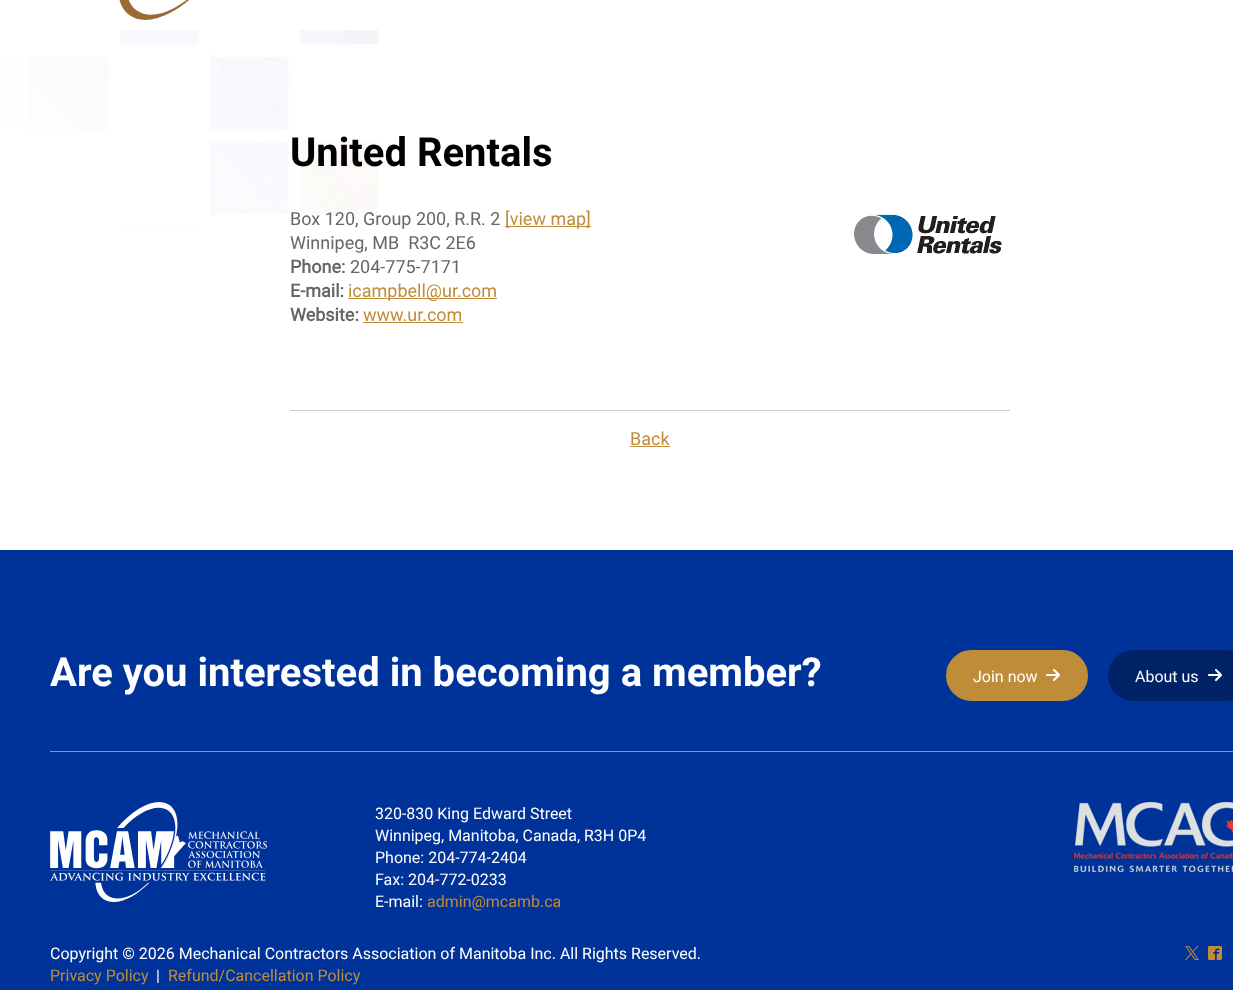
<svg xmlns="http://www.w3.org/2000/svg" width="1233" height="990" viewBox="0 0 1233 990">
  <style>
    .t1 { font: bold 40px Roboto; fill: #000; }
    .t2 { font: 18px Roboto; fill: #666; }
    .t3 { font: 18px Roboto; fill: #bf8c39; }
    .t4 { font: bold 18px 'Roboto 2'; fill: #666; }
    .t5 { font: bold 40px Roboto; fill: #fff; }
    .t6 { font: 16px Roboto; fill: #fff; }
    .t7 { font: 16px 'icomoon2'; fill: #fff; }
    .t8 { font: 16px Roboto; fill: #bf8c39; }
    .t9 { font: 14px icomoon; fill: #bf8c39; }
  </style>
  <rect width="100%" height="100%" fill="#fff"/>
  <image x="0" y="30" width="379" height="200" href="images/1.png"/>
  <image x="119" y="0" width="70" height="20" href="images/2.png"/>
  <text x="290" y="166" class="t1">United Rentals</text>
  <text x="290" y="225" class="t2">Box 120, Group 200, R.R. 2</text>
  <rect x="505" y="226" width="86" height="1" fill="#bf8c39"/>
  <text x="505" y="225" class="t3">[view map]</text>
  <text x="290" y="249" class="t2" xml:space="preserve">Winnipeg, MB  R3C 2E6</text>
  <text x="290" y="273" class="t4">Phone:</text>
  <text x="350" y="273" class="t2">204-775-7171</text>
  <text x="290" y="297" class="t4">E-mail:</text>
  <rect x="348" y="298" width="149" height="1" fill="#bf8c39"/>
  <text x="348" y="297" class="t3">icampbell@ur.com</text>
  <text x="290" y="321" class="t4">Website:</text>
  <text x="363" y="321" class="t3">www.ur.com</text>
  <rect x="363" y="322" width="100" height="1" fill="#bf8c39"/>
  <image x="854" y="214" width="148" height="40" href="images/3.png"/>
  <rect x="290" y="410" width="720" height="1" fill="#ccc"/>
  <text x="630" y="445" class="t3">Back</text>
  <rect x="630" y="446" width="40" height="1" fill="#bf8c39"/>
  <rect x="0" y="550" width="1233" height="50" fill="#039"/>
  <rect x="0" y="600" width="1233" height="390" fill="#039"/>
  <rect x="50" y="751" width="1183" height="1" fill="#bf8c39"/>
  <text x="50" y="686" class="t5">Are you interested in becoming a member?</text>
  <rect x="947" y="651" width="140" height="49" rx="24.5" fill="#bf8c39" stroke="#bf8c39" stroke-width="2"/>
  <text x="973" y="682" class="t6">Join now</text>
  <text x="1045" y="682" class="t7">6</text>
  <rect x="1109" y="651" width="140" height="49" rx="24.5" fill="#026" stroke="#026" stroke-width="2"/>
  <text x="1135" y="682" class="t6">About us</text>
  <text x="1207" y="682" class="t7">6</text>
  <image x="50" y="802" width="217" height="100" href="images/4.png"/>
  <text x="375" y="819" class="t6">320-830 King Edward Street</text>
  <text x="375" y="841" class="t6">Winnipeg, Manitoba, Canada, R3H 0P4</text>
  <text x="375" y="863" class="t6">Phone: 204-774-2404</text>
  <text x="375" y="885" class="t6">Fax: 204-772-0233</text>
  <text x="375" y="907" class="t6">E-mail:</text>
  <text x="427" y="907" class="t8">admin@mcamb.ca</text>
  <image x="1074" y="802" width="159" height="70" href="images/5.png"/>
  <text x="50" y="959" class="t6">Copyright © 2026 Mechanical Contractors Association of Manitoba Inc. All Rights Reserved.</text>
  <text x="1185" y="959" class="t9">*</text>
  <text x="1208" y="959" class="t9">^</text>
  <text x="50" y="981" class="t8">Privacy Policy</text>
  <text x="156" y="981" class="t6">|</text>
  <text x="168" y="981" class="t8">Refund/Cancellation Policy</text>
</svg>
